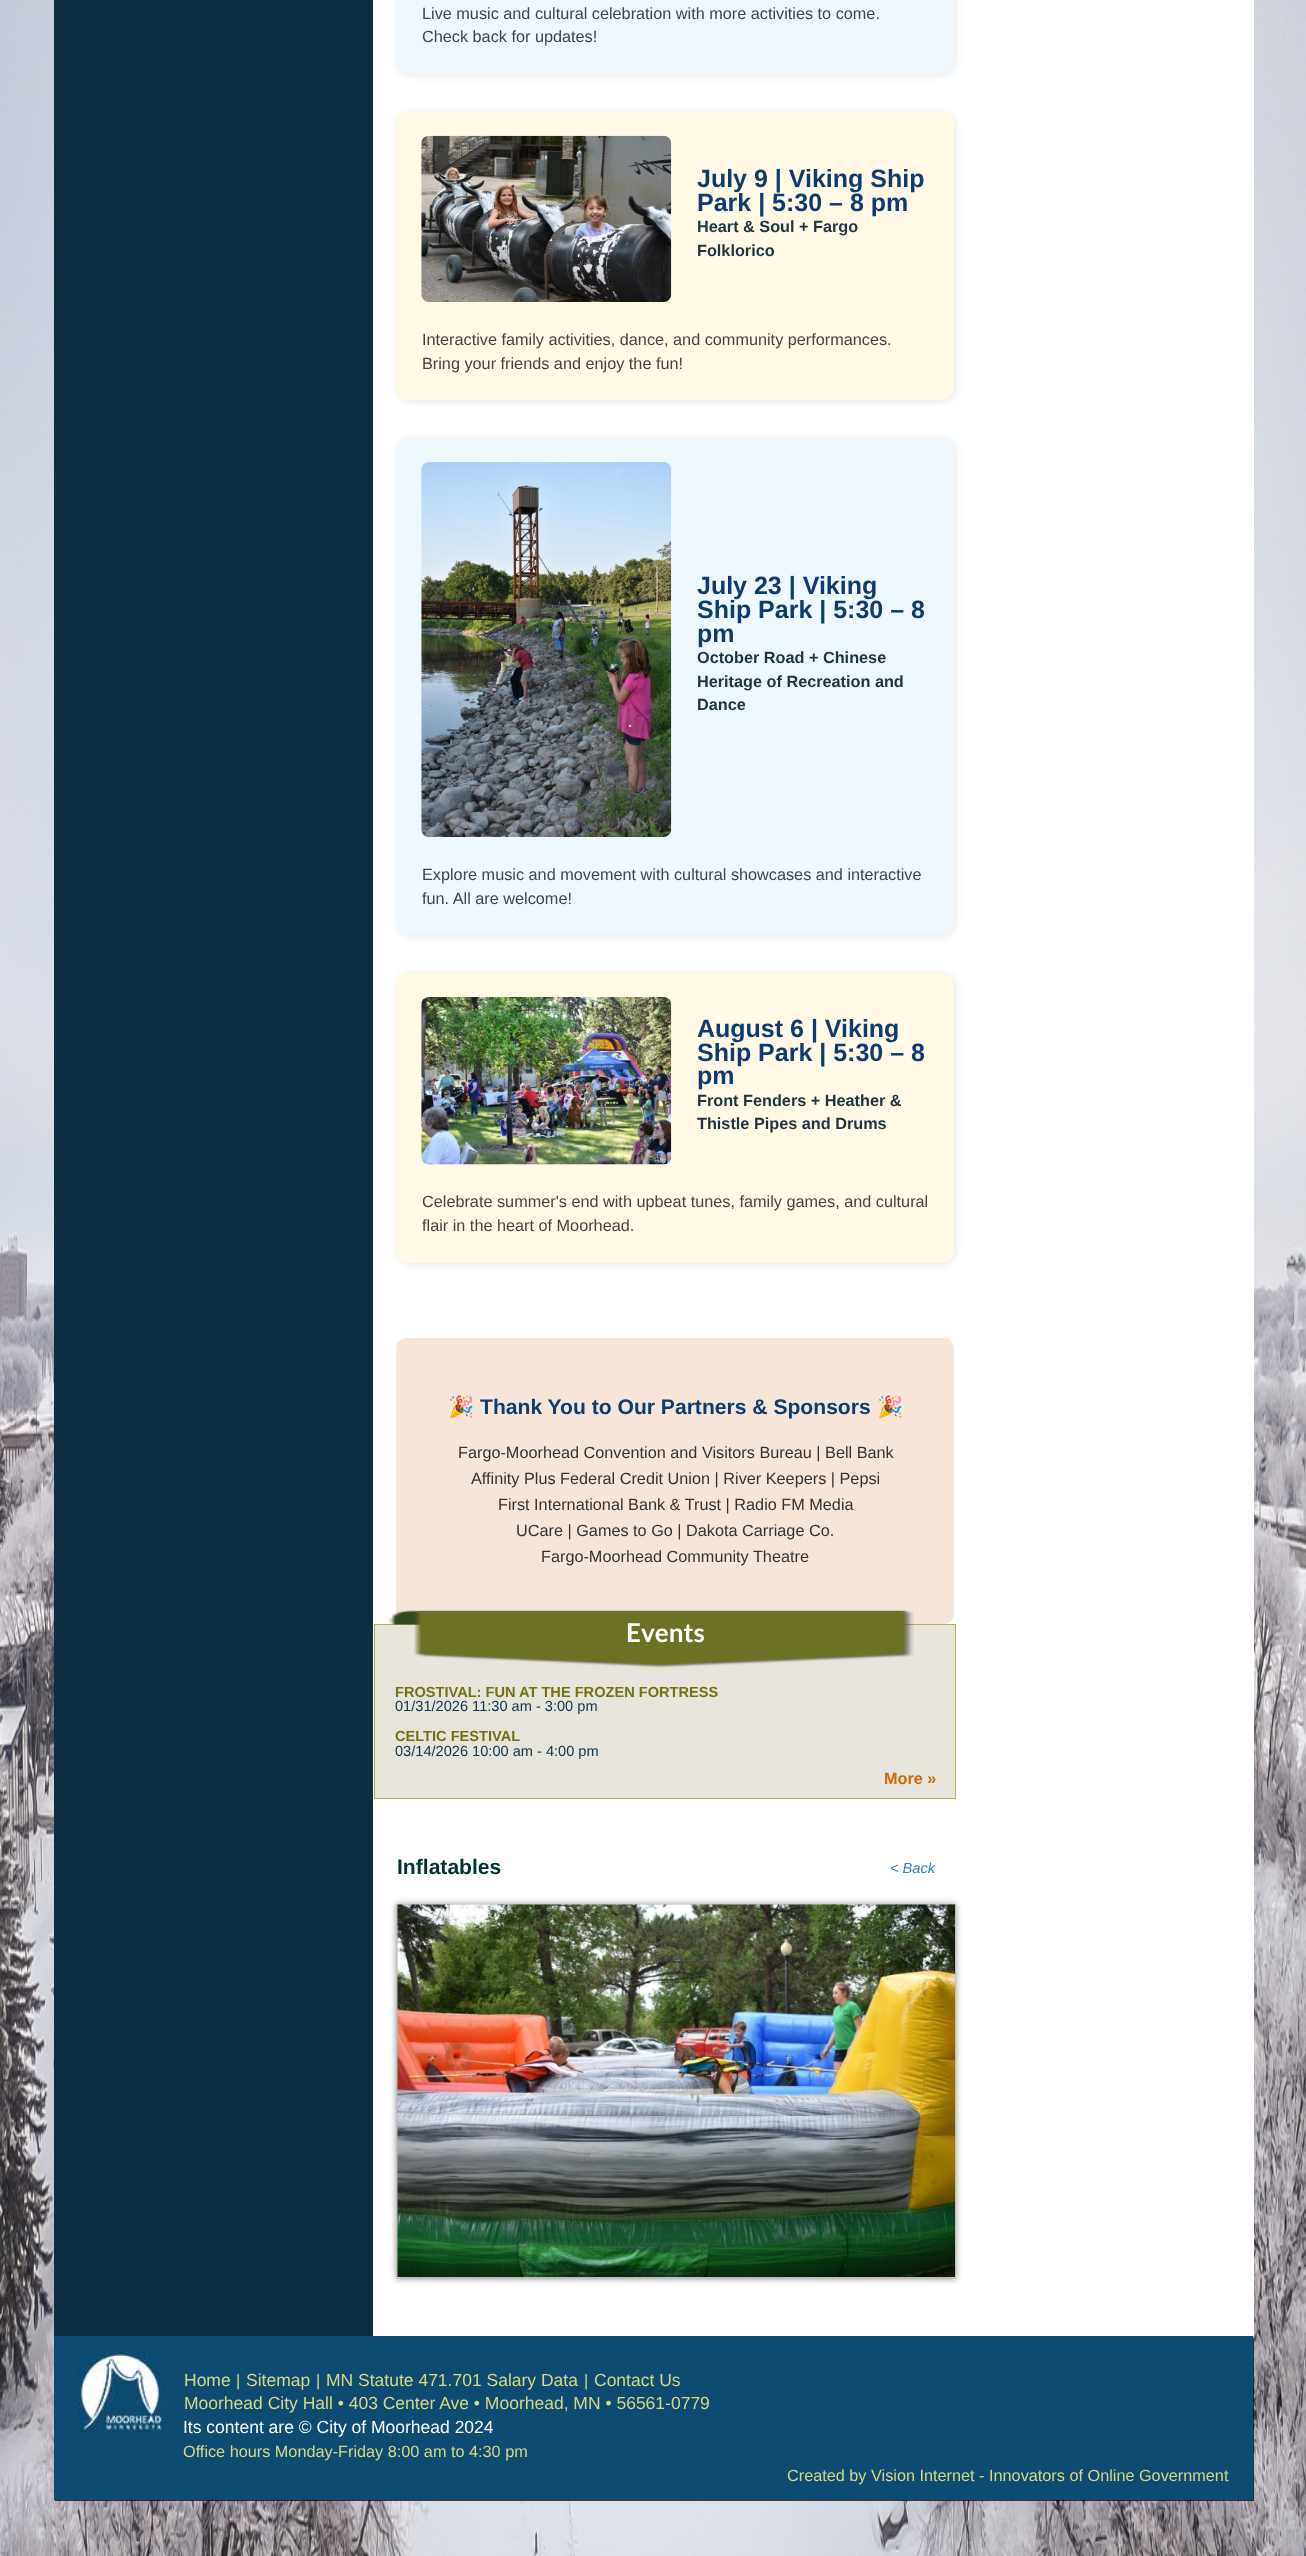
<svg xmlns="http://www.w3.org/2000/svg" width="1306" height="2556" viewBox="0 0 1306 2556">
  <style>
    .t1 { font: 16.25px Liberation Sans; fill: #444; }
    .t2 { font: bold 25px Liberation Sans; fill: #0e3b70; }
    .t3 { font: bold 16.25px Liberation Sans; fill: #203542; }
    .t4 { font: bold 21.1px Noto Color Emoji; fill: #0e3b70; }
    .t5 { font: bold 21.1px Liberation Sans; fill: #0e3b70; }
    .t6 { font: 16.25px Liberation Sans; fill: #333; }
    .t7 { font: bold 26px Lato; fill: #fff; }
    .t8 { font: bold 14.6px Liberation Sans; fill: #737213; }
    .t9 { font: 14.6px Liberation Sans; fill: #0e344f; }
    .t10 { font: bold 16.25px Liberation Sans; fill: #cc670d; }
    .t11 { font: bold 21.1px Liberation Sans; fill: #033; }
    .t12 { font: italic 14.6px Liberation Sans; fill: #2e80c3; }
    .t13 { font: 17.5px Liberation Sans; fill: #d7d880; }
    .t14 { font: 16.25px Liberation Sans; fill: #d7d880; }
    .t15 { font: 17.5px Liberation Sans; fill: #fff; }
  </style>
  <rect width="100%" height="100%" fill="#fff"/>
  <image x="0" y="0" width="1306" height="2556" href="images/1.png"/>
  <rect x="55" y="2338" width="1199" height="163" fill="#000000ba" filter="blur(0.5px)"/>
  <rect x="373" y="0" width="881" height="2336" fill="#fff"/>
  <rect x="54" y="0" width="319" height="2336" fill="#0e2d40"/>
  <rect x="398" y="-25" width="557" height="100" rx="13" fill="#0000001a" filter="blur(4px)"/>
  <rect x="396" y="-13" width="558" height="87" rx="13" fill="#f0f8ff"/>
  <text x="422" y="19" class="t1">Live music and cultural celebration with more activities to come.</text>
  <text x="422" y="42" class="t1">Check back for updates!</text>
  <rect x="398" y="113" width="557" height="288" rx="13" fill="#0000001a" filter="blur(4px)"/>
  <rect x="396" y="111" width="558" height="289" rx="13" fill="#fff9e6"/>
  <image x="421" y="135" width="251" height="167" href="images/2.png"/>
  <text x="697" y="187" class="t2">July 9 | Viking Ship</text>
  <text x="697" y="211" class="t2">Park | 5:30 – 8 pm</text>
  <text x="697" y="232" class="t3">Heart &amp; Soul + Fargo</text>
  <text x="697" y="256" class="t3">Folklorico</text>
  <text x="422" y="345" class="t1">Interactive family activities, dance, and community performances.</text>
  <text x="422" y="369" class="t1">Bring your friends and enjoy the fun!</text>
  <rect x="398" y="439" width="557" height="497" rx="13" fill="#0000001a" filter="blur(4px)"/>
  <rect x="396" y="438" width="558" height="497" rx="13" fill="#f0f8ff"/>
  <image x="421" y="462" width="251" height="375" href="images/3.png"/>
  <text x="697" y="594" class="t2">July 23 | Viking</text>
  <text x="697" y="618" class="t2">Ship Park | 5:30 – 8</text>
  <text x="697" y="642" class="t2">pm</text>
  <text x="697" y="663" class="t3">October Road + Chinese</text>
  <text x="697" y="687" class="t3">Heritage of Recreation and</text>
  <text x="697" y="710" class="t3">Dance</text>
  <text x="422" y="880" class="t1">Explore music and movement with cultural showcases and interactive</text>
  <text x="422" y="904" class="t1">fun. All are welcome!</text>
  <rect x="398" y="974" width="557" height="290" rx="13" fill="#0000001a" filter="blur(4px)"/>
  <rect x="396" y="973" width="558" height="290" rx="13" fill="#fff9e6"/>
  <image x="421" y="997" width="251" height="168" href="images/4.png"/>
  <text x="697" y="1037" class="t2">August 6 | Viking</text>
  <text x="697" y="1061" class="t2">Ship Park | 5:30 – 8</text>
  <text x="697" y="1084" class="t2">pm</text>
  <text x="697" y="1106" class="t3">Front Fenders + Heather &amp;</text>
  <text x="697" y="1129" class="t3">Thistle Pipes and Drums</text>
  <text x="422" y="1207" class="t1">Celebrate summer's end with upbeat tunes, family games, and cultural</text>
  <text x="422" y="1231" class="t1">flair in the heart of Moorhead.</text>
  <rect x="396" y="1338" width="558" height="286" rx="10" fill="#f5e6d9"/>
  <text x="448" y="1414" class="t4">🎉</text>
  <text x="480" y="1414" class="t5">Thank You to Our Partners &amp; Sponsors</text>
  <text x="877" y="1414" class="t4">🎉</text>
  <text x="458" y="1458" class="t6">Fargo-Moorhead Convention and Visitors Bureau | Bell Bank</text>
  <text x="471" y="1484" class="t6">Affinity Plus Federal Credit Union | River Keepers | Pepsi</text>
  <text x="498" y="1510" class="t6">First International Bank &amp; Trust | Radio FM Media</text>
  <text x="516" y="1536" class="t6">UCare | Games to Go | Dakota Carriage Co.</text>
  <text x="541" y="1562" class="t6">Fargo-Moorhead Community Theatre</text>
  <rect x="374.5" y="1624.5" width="581" height="174" fill="#e7e5db" stroke="#b4b255"/>
  <image x="388" y="1610" width="526" height="58" href="images/5.png"/>
  <text x="626" y="1642" class="t7">Events</text>
  <text x="395" y="1697" class="t8">FROSTIVAL: FUN AT THE FROZEN FORTRESS</text>
  <text x="395" y="1711" class="t9">01/31/2026 11:30 am - 3:00 pm</text>
  <text x="395" y="1741" class="t8">CELTIC FESTIVAL</text>
  <text x="395" y="1756" class="t9">03/14/2026 10:00 am - 4:00 pm</text>
  <text x="884" y="1784" class="t10">More »</text>
  <text x="397" y="1874" class="t11">Inflatables</text>
  <text x="890" y="1873" class="t12">&lt; Back</text>
  <rect x="396" y="1904" width="560" height="375" fill="#00000066" filter="blur(3px)"/>
  <rect x="396.5" y="1904.5" width="559" height="374" fill="none" stroke="#bfbfbf"/>
  <image x="397" y="1904" width="558" height="373" href="images/6.png"/>
  <rect x="54" y="2336" width="1199" height="164" fill="#0e4b73"/>
  <image x="77" y="2351" width="87" height="81" href="images/7.png"/>
  <text x="184" y="2386" class="t13">Home</text>
  <text x="236" y="2386" class="t14">|</text>
  <text x="246" y="2386" class="t13">Sitemap</text>
  <text x="316" y="2386" class="t14">|</text>
  <text x="326" y="2386" class="t13">MN Statute 471.701 Salary Data</text>
  <text x="584" y="2386" class="t14">|</text>
  <text x="594" y="2386" class="t13">Contact Us</text>
  <text x="184" y="2409" class="t13">Moorhead City Hall • 403 Center Ave • Moorhead, MN • 56561-0779</text>
  <text x="183" y="2433" class="t15">Its content are © City of Moorhead 2024</text>
  <text x="183" y="2457" class="t14">Office hours Monday-Friday 8:00 am to 4:30 pm</text>
  <text x="787" y="2481" class="t14">Created by Vision Internet - Innovators of Online Government</text>
</svg>
